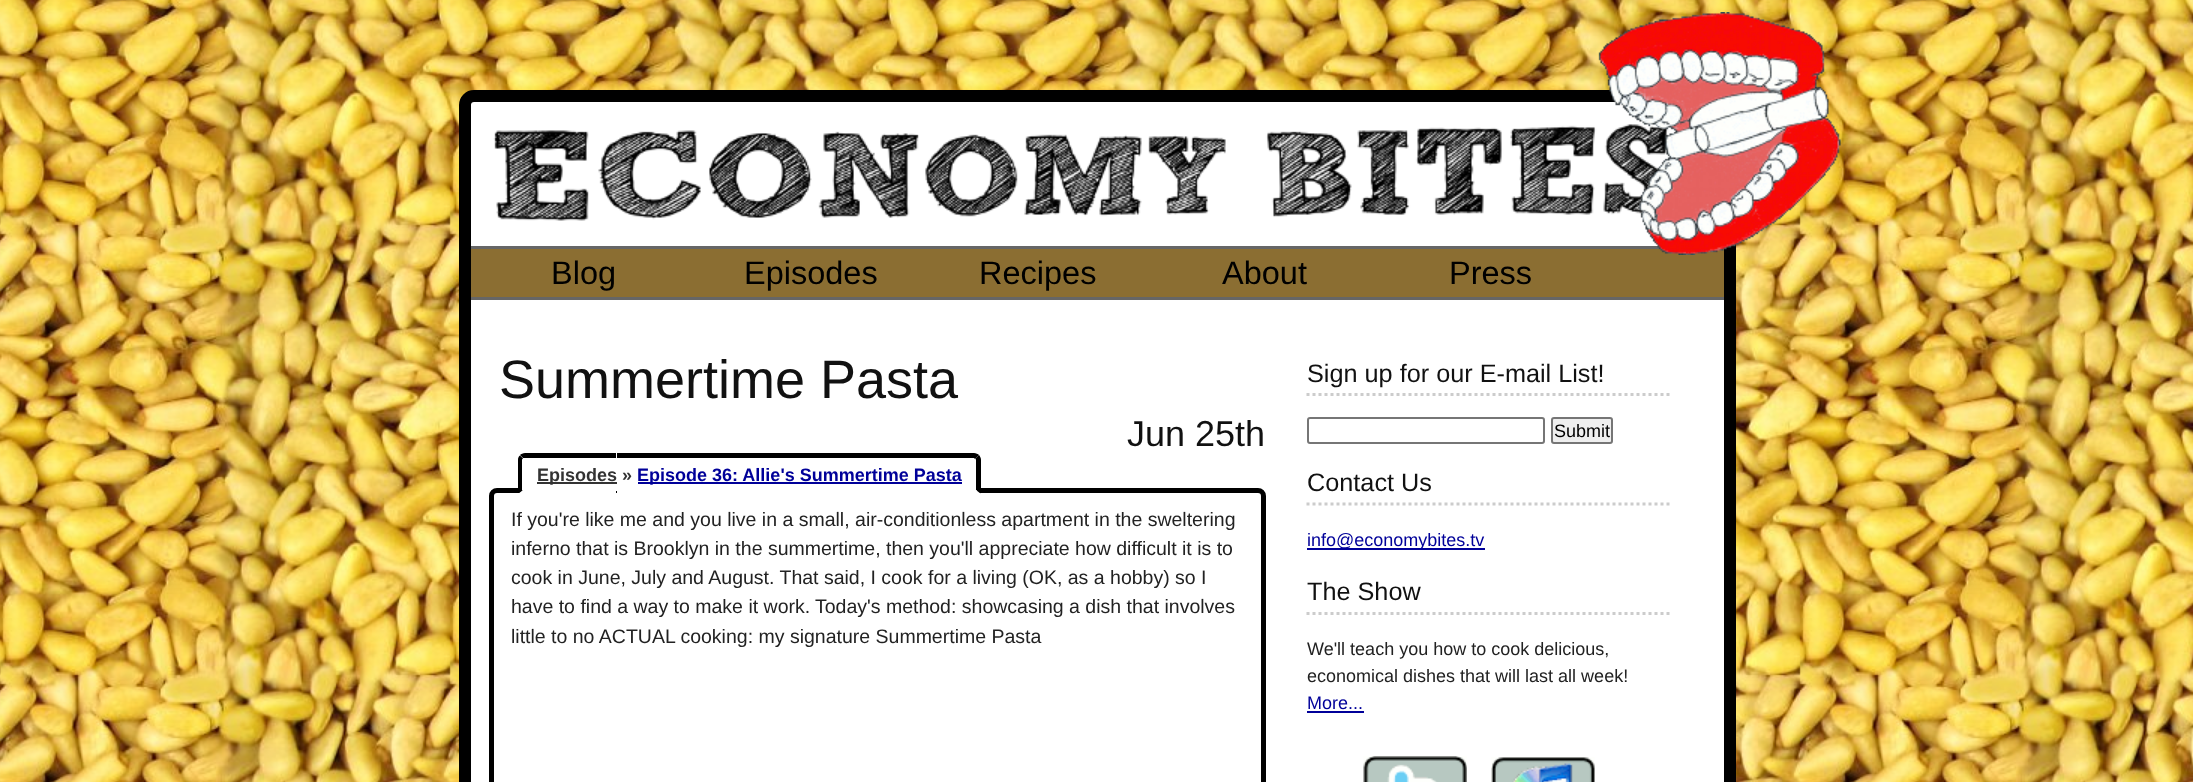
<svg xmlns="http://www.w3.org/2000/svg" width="2193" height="782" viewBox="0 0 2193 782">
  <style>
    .t1 { font: 32.5px Liberation Sans; fill: #000; }
    .t2 { font: 54px Liberation Sans; fill: #111; }
    .t3 { font: 36px Liberation Sans; fill: #111; }
    .t4 { font: bold 18px Liberation Sans; fill: #333; }
    .t5 { font: bold 18px Liberation Sans; fill: #009; }
    .t6 { font: 19.5px Liberation Sans; fill: #222; }
    .t7 { font: 25.25px Liberation Sans; fill: #111; }
    .t8 { font: 18px Liberation Sans; fill: #000; }
    .t9 { font: 18px Liberation Sans; fill: #009; }
    .t10 { font: 18px Liberation Sans; fill: #222; }
  </style>
  <rect width="100%" height="100%" fill="#fff"/>
  <image x="0" y="0" width="2193" height="782" href="images/1.png"/>
  <rect x="465" y="96" width="1265" height="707" rx="9" fill="#fff" stroke="#000" stroke-width="12"/>
  <image x="493" y="124" width="1176" height="97" href="images/2.png"/>
  <rect x="471" y="249" width="1253" height="48" fill="#8b6e32"/>
  <rect x="471" y="246" width="1253" height="3" fill="#666"/>
  <image x="1598" y="12" width="243" height="243" href="images/3.png"/>
  <rect x="471" y="297" width="1253" height="3" fill="#666"/>
  <text x="551" y="284" class="t1">Blog</text>
  <text x="744" y="284" class="t1">Episodes</text>
  <text x="979" y="284" class="t1">Recipes</text>
  <text x="1222" y="284" class="t1">About</text>
  <text x="1449" y="284" class="t1">Press</text>
  <text x="499" y="398" class="t2">Summertime Pasta</text>
  <text x="1127" y="446" class="t3">Jun 25th</text>
  <rect x="491.5" y="490.5" width="772" height="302" rx="5.5" fill="none" stroke="#000" stroke-width="5"/>
  <path d="M525 458H617V491H522V461C522 459.5 523.5 458 525 458Z" fill="#fff"/>
  <rect x="537" y="482" width="80" height="2" fill="#333"/>
  <text x="537" y="481" class="t4">Episodes »</text>
  <path d="M525 453H616V458H525H523L520 455C521 454 523 453 525 453Z" fill="#000"/>
  <path d="M518 494L523 490H616V494Z" fill="#fff"/>
  <path d="M523 490L518 493V460C518 458 518.5 456.5 520 455.5L523 458.5L522 459.5V490Z" fill="#000"/>
  <rect x="617" y="488" width="21" height="5" fill="#fff"/>
  <rect x="617" y="453" width="21" height="5" fill="#000"/>
  <path d="M638 458H974C975.5 458 977 459.5 977 461V491H638Z" fill="#fff"/>
  <rect x="638" y="482" width="324" height="2" fill="#009"/>
  <text x="637" y="481" class="t5">Episode 36: Allie's Summertime Pasta</text>
  <path d="M638 453H974C976 453 978 454 979 455L975 459L974 458H638Z" fill="#000"/>
  <path d="M976 490V460L975.5 458.5L979 455C980 456 981 458 981 460V493.5Z" fill="#000"/>
  <path d="M981 494H638V490H976Z" fill="#fff"/>
  <text x="511" y="526" class="t6">If you're like me and you live in a small, air-conditionless apartment in the sweltering</text>
  <text x="511" y="555" class="t6">inferno that is Brooklyn in the summertime, then you'll appreciate how difficult it is to</text>
  <text x="511" y="584" class="t6">cook in June, July and August. That said, I cook for a living (OK, as a hobby) so I</text>
  <text x="511" y="613" class="t6">have to find a way to make it work.</text>
  <text x="815" y="613" class="t6">Today's method: showcasing a dish that involves</text>
  <text x="511" y="643" class="t6">little to no ACTUAL cooking: my signature Summertime Pasta</text>
  <path d="M1306.5 394.5H1672.5" fill="none" stroke="#ccc" stroke-width="3" stroke-dasharray="3 3"/>
  <text x="1307" y="382" class="t7">Sign up for our E-mail List!</text>
  <rect x="1308" y="418" width="236" height="25" rx="2" fill="none" stroke="#767676" stroke-width="2"/>
  <rect x="1552" y="418" width="60" height="25" rx="2" fill="#efefef" stroke="#767676" stroke-width="2"/>
  <text x="1554" y="437" class="t8">Submit</text>
  <path d="M1306.5 504H1672.5" fill="none" stroke="#ccc" stroke-width="3" stroke-dasharray="3 3"/>
  <text x="1307" y="491" class="t7">Contact Us</text>
  <rect x="1307" y="548" width="178" height="2" fill="#009"/>
  <text x="1307" y="546" class="t9">info@economybites.tv</text>
  <path d="M1306.5 613.5H1672.5" fill="none" stroke="#ccc" stroke-width="3" stroke-dasharray="3 3"/>
  <text x="1307" y="600" class="t7">The Show</text>
  <text x="1307" y="655" class="t10">We'll teach you how to cook delicious,</text>
  <text x="1307" y="682" class="t10">economical dishes that will last all week!</text>
  <text x="1307" y="709" class="t9">More...</text>
  <rect x="1307" y="711" width="57" height="2" fill="#009"/>
  <image x="1363" y="756" width="104" height="26" href="images/4.png"/>
  <image x="1491" y="757" width="104" height="25" href="images/5.png"/>
</svg>
